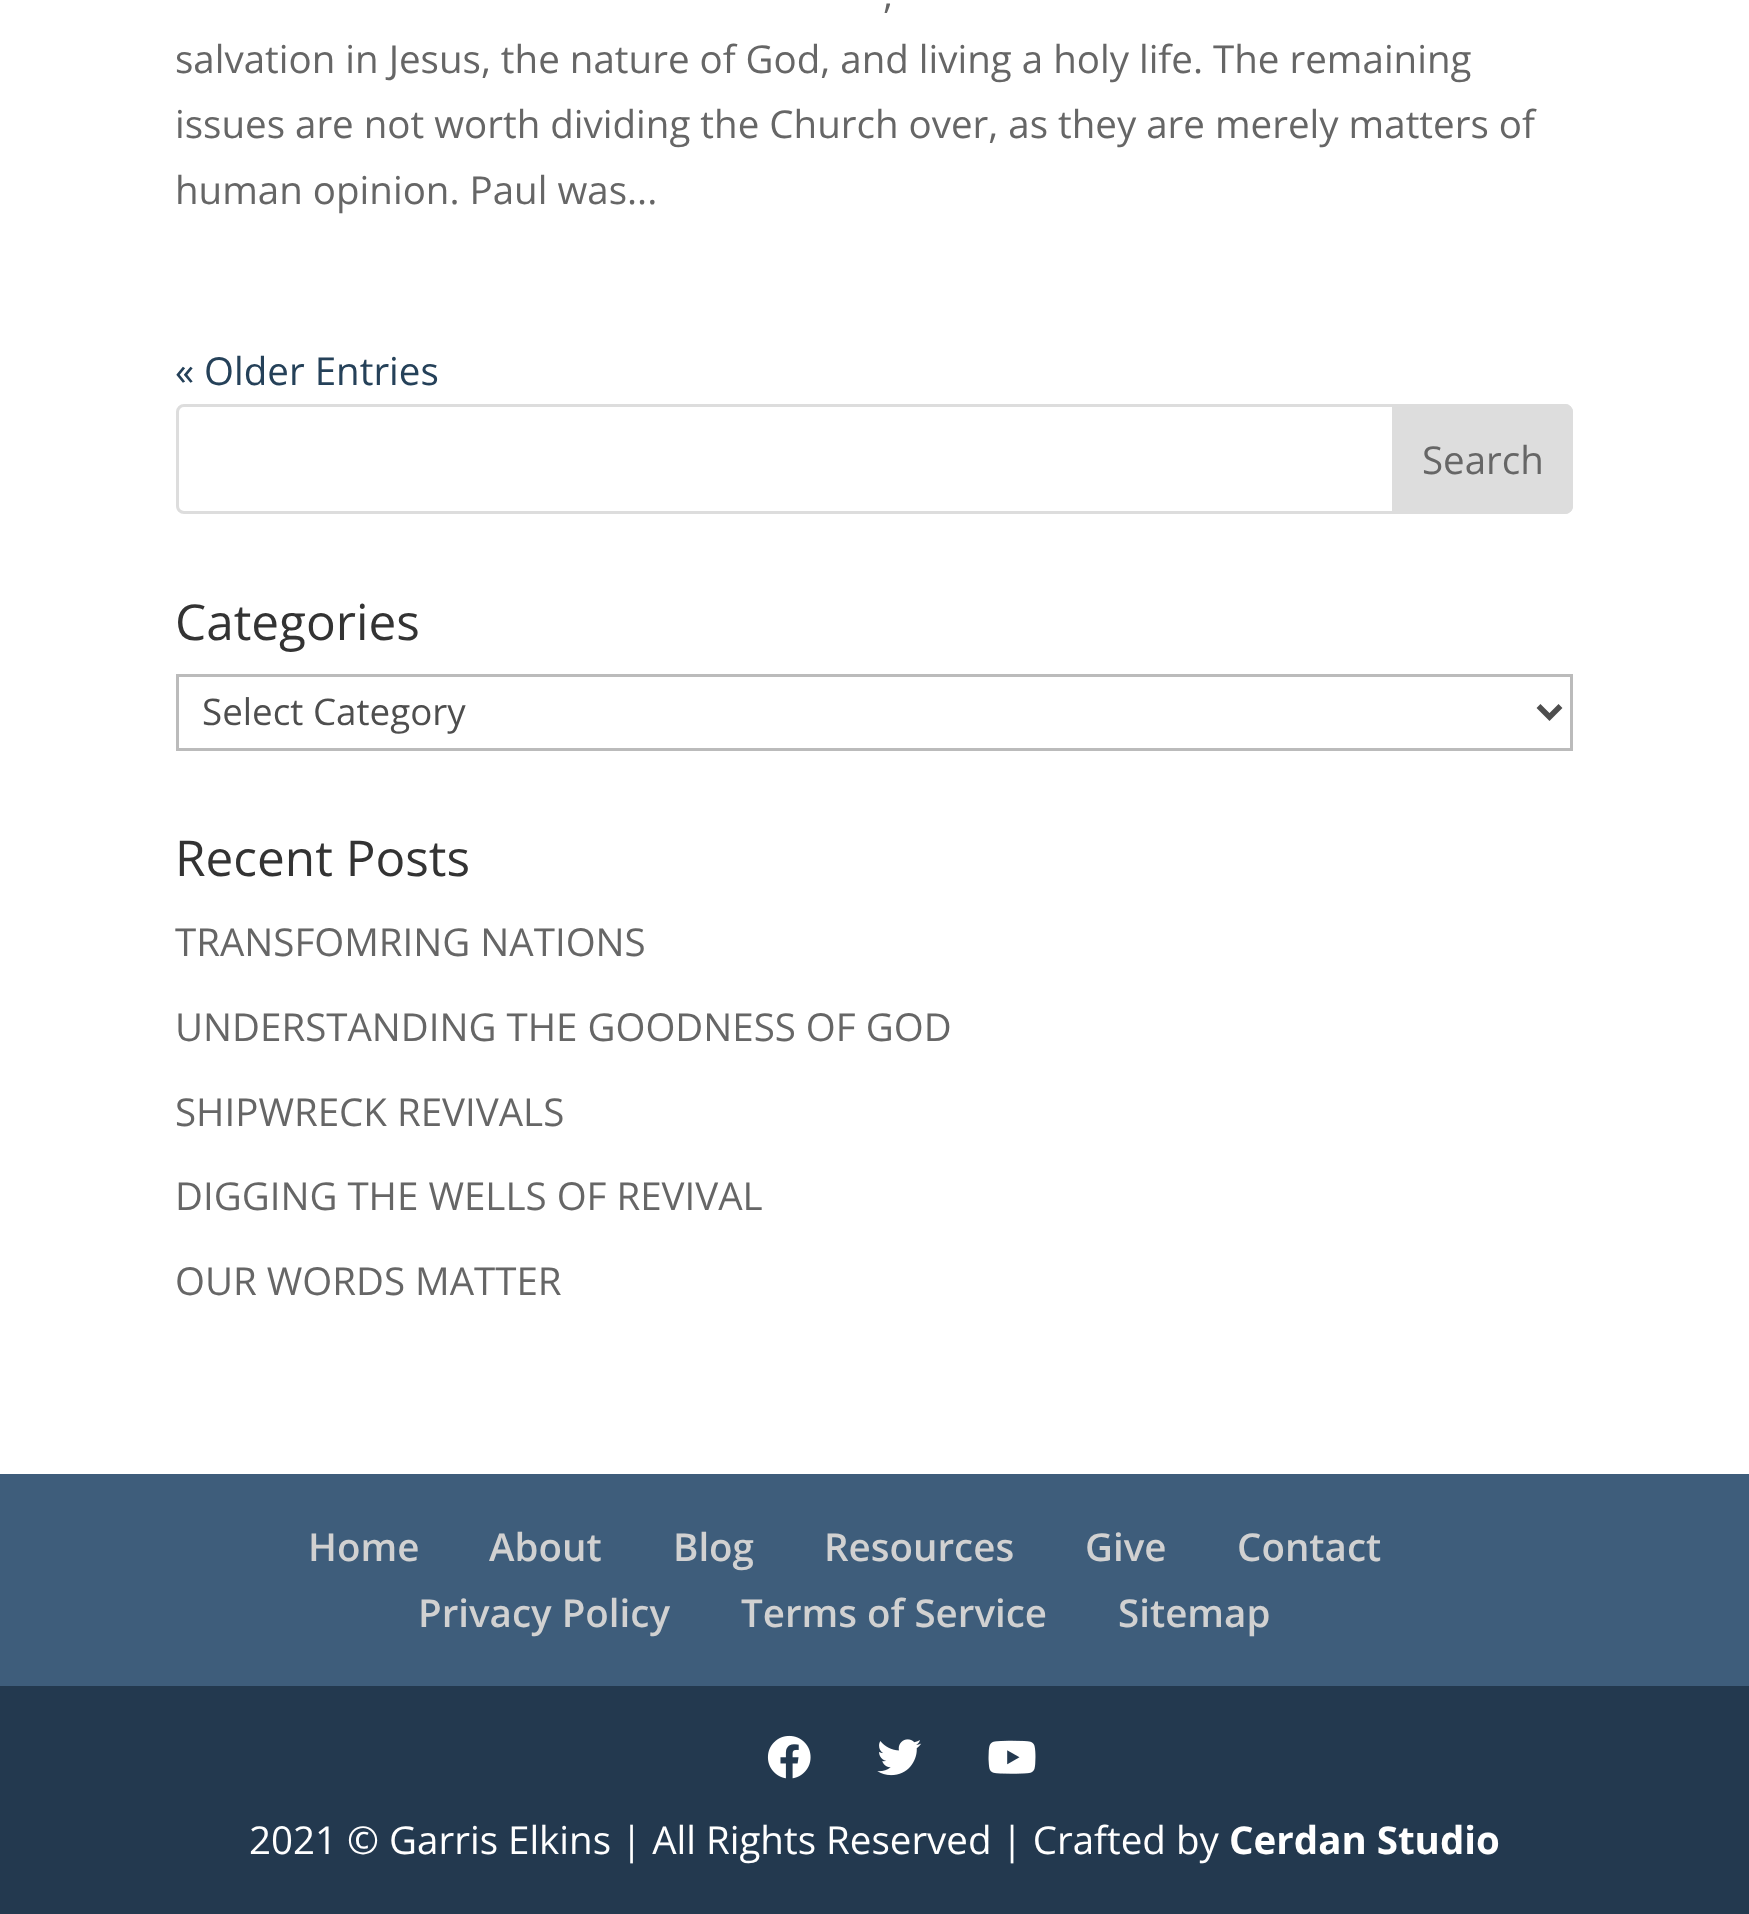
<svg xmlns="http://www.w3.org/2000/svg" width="1749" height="1914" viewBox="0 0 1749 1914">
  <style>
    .t1 { font: 38.5px Open Sans; fill: #666; }
    .t2 { font: 38.5px Open Sans; fill: #254159; }
    .t3 { font: 49.5px Open Sans; fill: #333; }
    .t4 { font: 36.75px Open Sans; fill: #4e4e4e; }
    .t5 { font: 600 38.5px Open Sans; fill: #d1d1d1; }
    .t6 { font: 38.5px Open Sans; fill: #fff; }
    .t7 { font: bold 38.5px Open Sans; fill: #fff; }
  </style>
  <rect width="100%" height="100%" fill="#fff"/>
  <text x="883" y="8" class="t1">,</text>
  <text x="175" y="73" class="t1">salvation in Jesus, the nature of God, and living a holy life. The remaining</text>
  <text x="175" y="138" class="t1">issues are not worth dividing the Church over, as they are merely matters of</text>
  <text x="175" y="204" class="t1">human opinion. Paul was...</text>
  <text x="175" y="385" class="t2">« Older Entries</text>
  <rect x="177.5" y="405.5" width="1394" height="107" rx="6.5" fill="none" stroke="#ddd" stroke-width="3"/>
  <path d="M1393.5 405.5H1565C1568.5 405.5 1571.5 408.5 1571.5 412V506C1571.5 509.5 1568.5 512.5 1565 512.5H1393.5Z" fill="#ddd" stroke="#ddd" stroke-width="3"/>
  <text x="1422" y="474" class="t1">Search</text>
  <text x="175" y="640" class="t3">Categories</text>
  <rect x="177.5" y="675.5" width="1394" height="74" fill="none" stroke="#bbb" stroke-width="3"/>
  <path d="M1538.5 706L1549.5 717L1560.5 706" fill="none" stroke="#4e4e4e" stroke-width="5.5"/>
  <text x="202" y="725" class="t4">Select Category</text>
  <text x="175" y="876" class="t3">Recent Posts</text>
  <text x="175" y="956" class="t1">TRANSFOMRING NATIONS</text>
  <text x="175" y="1041" class="t1">UNDERSTANDING THE GOODNESS OF GOD</text>
  <text x="175" y="1126" class="t1">SHIPWRECK REVIVALS</text>
  <text x="175" y="1210" class="t1">DIGGING THE WELLS OF REVIVAL</text>
  <text x="175" y="1295" class="t1">OUR WORDS MATTER</text>
  <rect x="0" y="1474" width="1749" height="212" fill="#3e5d7b"/>
  <text x="308" y="1561" class="t5">Home</text>
  <text x="489" y="1561" class="t5">About</text>
  <text x="673" y="1561" class="t5">Blog</text>
  <text x="824" y="1561" class="t5">Resources</text>
  <text x="1085" y="1561" class="t5">Give</text>
  <text x="1237" y="1561" class="t5">Contact</text>
  <text x="418" y="1627" class="t5">Privacy Policy</text>
  <text x="741" y="1627" class="t5">Terms of Service</text>
  <text x="1118" y="1627" class="t5">Sitemap</text>
  <rect x="0" y="1686" width="1749" height="228" fill="#23394f"/>
  <image x="767" y="1735" width="44" height="44" href="images/1.png"/>
  <image x="877" y="1739" width="45" height="37" href="images/2.png"/>
  <image x="988" y="1740" width="48" height="34" href="images/3.png"/>
  <text x="249" y="1854" class="t6">2021 © Garris Elkins | All Rights Reserved | Crafted by</text>
  <text x="1229" y="1854" class="t7">Cerdan Studio</text>
</svg>
